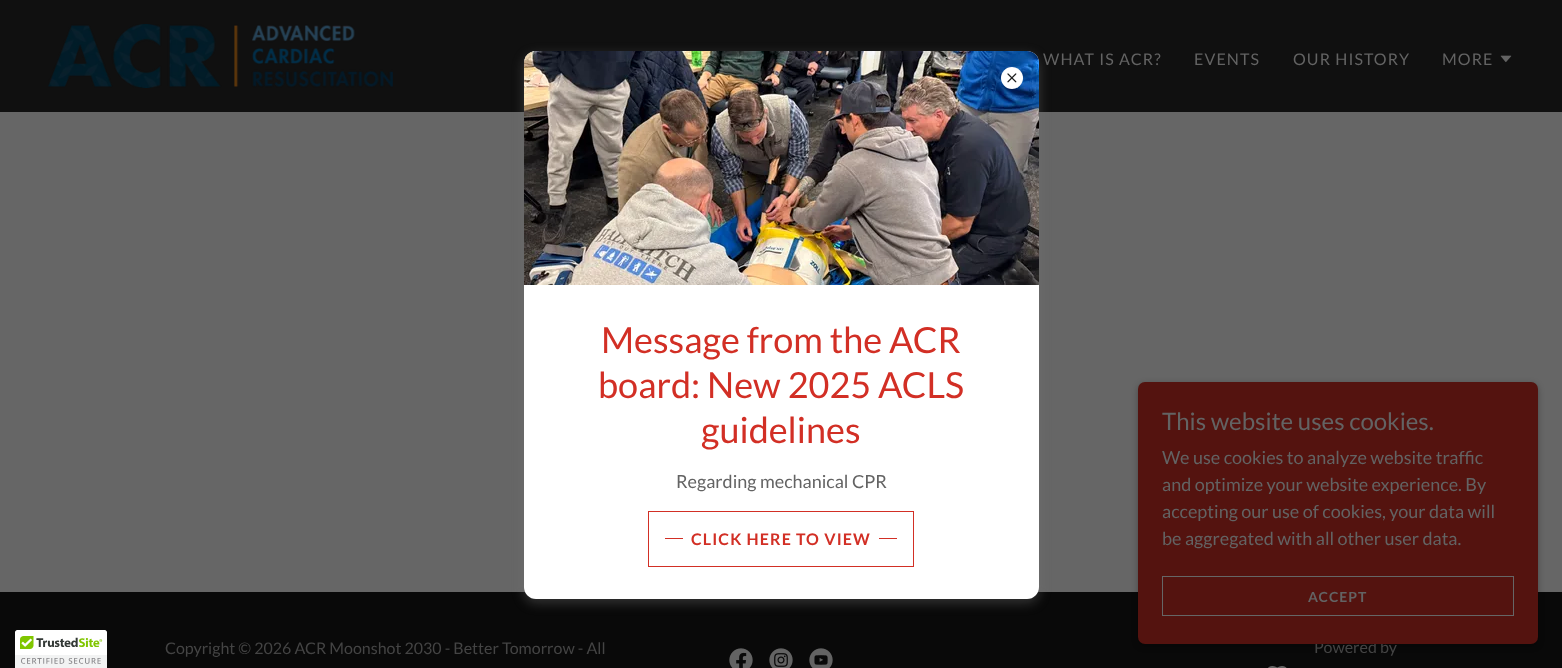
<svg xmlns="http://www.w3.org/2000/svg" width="1562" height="668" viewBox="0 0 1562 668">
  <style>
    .t1 { font: 16px Lato; letter-spacing: 1.1px; fill: #636363; }
    .t2 { font: 36px Lato; fill: #d22f25; }
    .t3 { font: 18px Lato; fill: #636363; }
    .t4 { font: bold 16px Lato; letter-spacing: 1.1px; fill: #d22f25; }
    .t5 { font: 16px Lato; fill: #444; }
    .t6 { font: 24px Lato; fill: #636363; }
    .t7 { font: bold 14px Lato; letter-spacing: 1px; fill: #636363; }
  </style>
  <rect width="100%" height="100%" fill="#090909"/>
  <image x="15" y="630" width="92" height="38" href="images/1.png"/>
  <rect x="0" y="0" width="1562" height="112" fill="#101010"/>
  <image x="48" y="24" width="345" height="64" href="images/2.png"/>
  <text x="1043" y="65" class="t1">WHAT IS ACR?</text>
  <text x="1194" y="65" class="t1">EVENTS</text>
  <text x="1293" y="65" class="t1">OUR HISTORY</text>
  <text x="1442" y="65" class="t1">MORE</text>
  <image x="1500" y="55" width="12" height="8" href="images/3.png"/>
  <rect x="0" y="112" width="1562" height="480" fill="#666"/>
  <rect x="524" y="55" width="515" height="548" rx="12" fill="#75757566" filter="blur(6px)"/>
  <rect x="524" y="51" width="515" height="548" rx="12" fill="#fff"/>
  <image x="524" y="51" width="515" height="234" href="images/5.png"/>
  <circle cx="1012" cy="78" r="11" fill="#fff"/>
  <image x="1007" y="73" width="10" height="10" href="images/4.png"/>
  <text x="601" y="353" class="t2">Message from the ACR</text>
  <text x="598" y="398" class="t2">board: New 2025 ACLS</text>
  <text x="701" y="443" class="t2">guidelines</text>
  <text x="676" y="488" class="t3">Regarding mechanical CPR</text>
  <rect x="648.5" y="511.5" width="265" height="55" fill="none" stroke="#d22f25"/>
  <rect x="665" y="538" width="18" height="1" fill="#d22f25"/>
  <text x="691" y="545" class="t4">CLICK HERE TO VIEW</text>
  <rect x="879" y="538" width="18" height="1" fill="#d22f25"/>
  <rect x="1138" y="384" width="400" height="262" rx="7" fill="#0000004d" filter="blur(3px)"/>
  <text x="1314" y="653" class="t5">Powered by</text>
  <rect x="1138" y="382" width="400" height="262" rx="7" fill="#54130f"/>
  <text x="1162" y="430" class="t6">This website uses cookies.</text>
  <text x="1162" y="464" class="t3">We use cookies to analyze website traffic</text>
  <text x="1162" y="491" class="t3">and optimize your website experience. By</text>
  <text x="1162" y="518" class="t3">accepting our use of cookies, your data will</text>
  <text x="1162" y="545" class="t3">be aggregated with all other user data.</text>
  <rect x="1162.5" y="576.5" width="351" height="39" fill="none" stroke="#666"/>
  <text x="1308" y="602" class="t7">ACCEPT</text>
  <text x="165" y="654" class="t5">Copyright © 2026 ACR Moonshot 2030 - Better Tomorrow - All</text>
  <image x="729" y="648" width="24" height="20" href="images/6.png"/>
  <image x="769" y="648" width="24" height="20" href="images/7.png"/>
  <image x="809" y="648" width="24" height="20" href="images/8.png"/>
  <image x="1268" y="666" width="19" height="2" href="images/9.png"/>
</svg>
